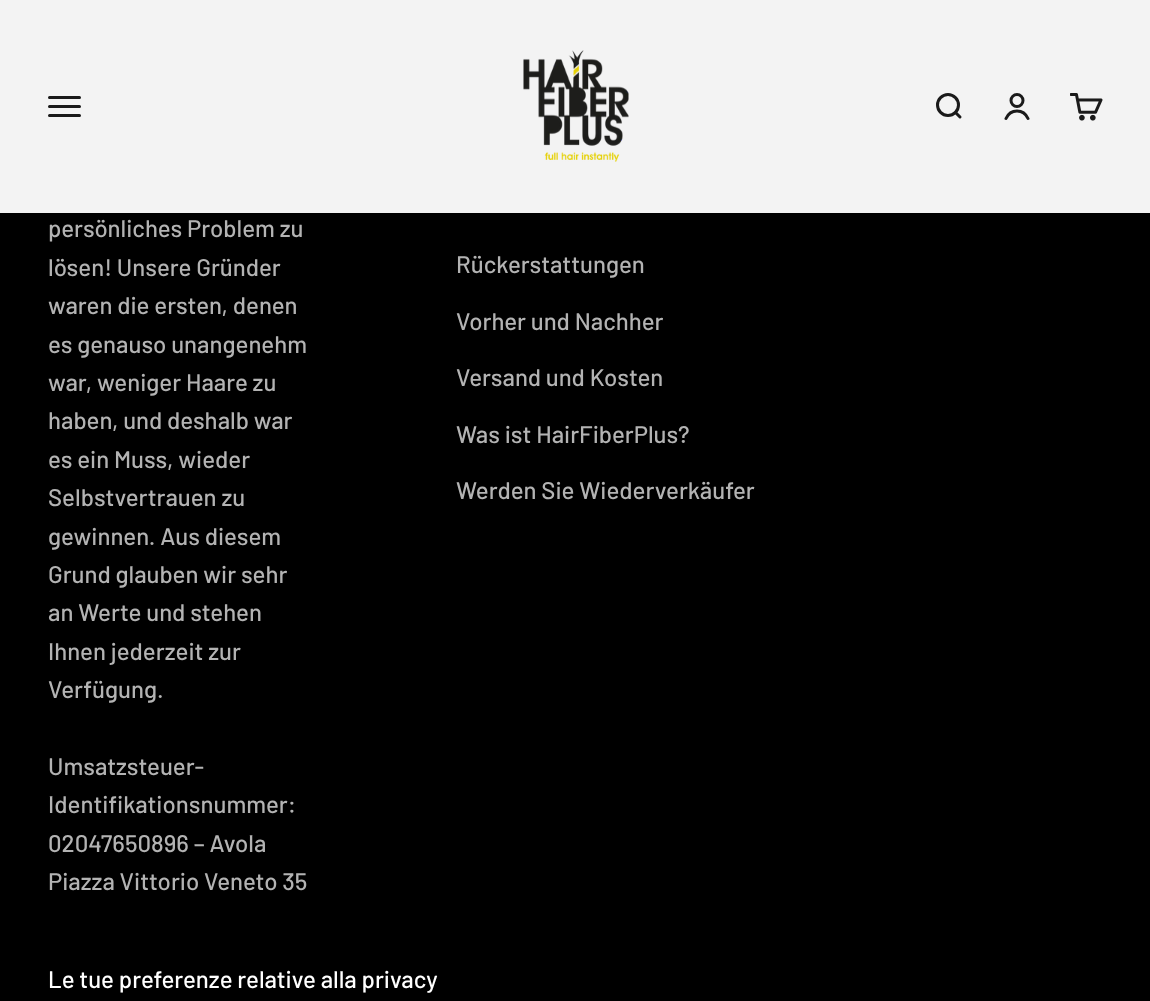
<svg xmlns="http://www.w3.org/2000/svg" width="1150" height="1001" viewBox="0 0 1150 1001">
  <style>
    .t1 { font: 500 24px Barlow; fill: #b3b3b3; }
    .t2 { font: 500 24px Barlow; fill: #fff; }
  </style>
  <rect width="100%" height="100%" fill="#000"/>
  <rect x="0" y="0" width="1150" height="213" fill="#f3f3f3"/>
  <path d="M49.5 97.5H79.5M49.5 106.5H79.5M49.5 115.5H79.5" fill="none" stroke="#1a1a1a" stroke-width="3" stroke-linecap="round"/>
  <image x="523" y="50" width="106" height="112" href="images/1.png"/>
  <circle cx="948" cy="105" r="10.5" fill="none" stroke="#1a1a1a" stroke-width="3"/>
  <path d="M955.5 112.5L960 117" fill="none" stroke="#1a1a1a" stroke-width="3" stroke-linecap="round" stroke-linejoin="round"/>
  <circle cx="1017" cy="100.5" r="6" fill="none" stroke="#1a1a1a" stroke-width="3"/>
  <path d="M1006 118.5C1010.5 108.5 1023.5 108.5 1028 118.5" fill="none" stroke="#1a1a1a" stroke-width="3" stroke-linecap="round"/>
  <image x="1070" y="93" width="33" height="28" href="images/2.png"/>
  <text x="48" y="237" class="t1">persönliches Problem zu</text>
  <text x="48" y="276" class="t1">lösen! Unsere Gründer</text>
  <text x="48" y="314" class="t1">waren die ersten, denen</text>
  <text x="48" y="353" class="t1">es genauso unangenehm</text>
  <text x="48" y="391" class="t1">war, weniger Haare zu</text>
  <text x="48" y="429" class="t1">haben, und deshalb war</text>
  <text x="48" y="468" class="t1">es ein Muss, wieder</text>
  <text x="48" y="506" class="t1">Selbstvertrauen zu</text>
  <text x="48" y="545" class="t1">gewinnen. Aus diesem</text>
  <text x="48" y="583" class="t1">Grund glauben wir sehr</text>
  <text x="48" y="621" class="t1">an Werte und stehen</text>
  <text x="48" y="660" class="t1">Ihnen jederzeit zur</text>
  <text x="48" y="698" class="t1">Verfügung.</text>
  <text x="48" y="775" class="t1">Umsatzsteuer-</text>
  <text x="48" y="813" class="t1">Identifikationsnummer:</text>
  <text x="48" y="852" class="t1">02047650896 – Avola</text>
  <text x="48" y="890" class="t1">Piazza Vittorio Veneto 35</text>
  <text x="456" y="273" class="t1">Rückerstattungen</text>
  <text x="456" y="330" class="t1">Vorher und Nachher</text>
  <text x="456" y="386" class="t1">Versand und Kosten</text>
  <text x="456" y="443" class="t1">Was ist HairFiberPlus?</text>
  <text x="456" y="499" class="t1">Werden Sie Wiederverkäufer</text>
  <text x="48" y="988" class="t2">Le tue preferenze relative alla privacy</text>
</svg>
